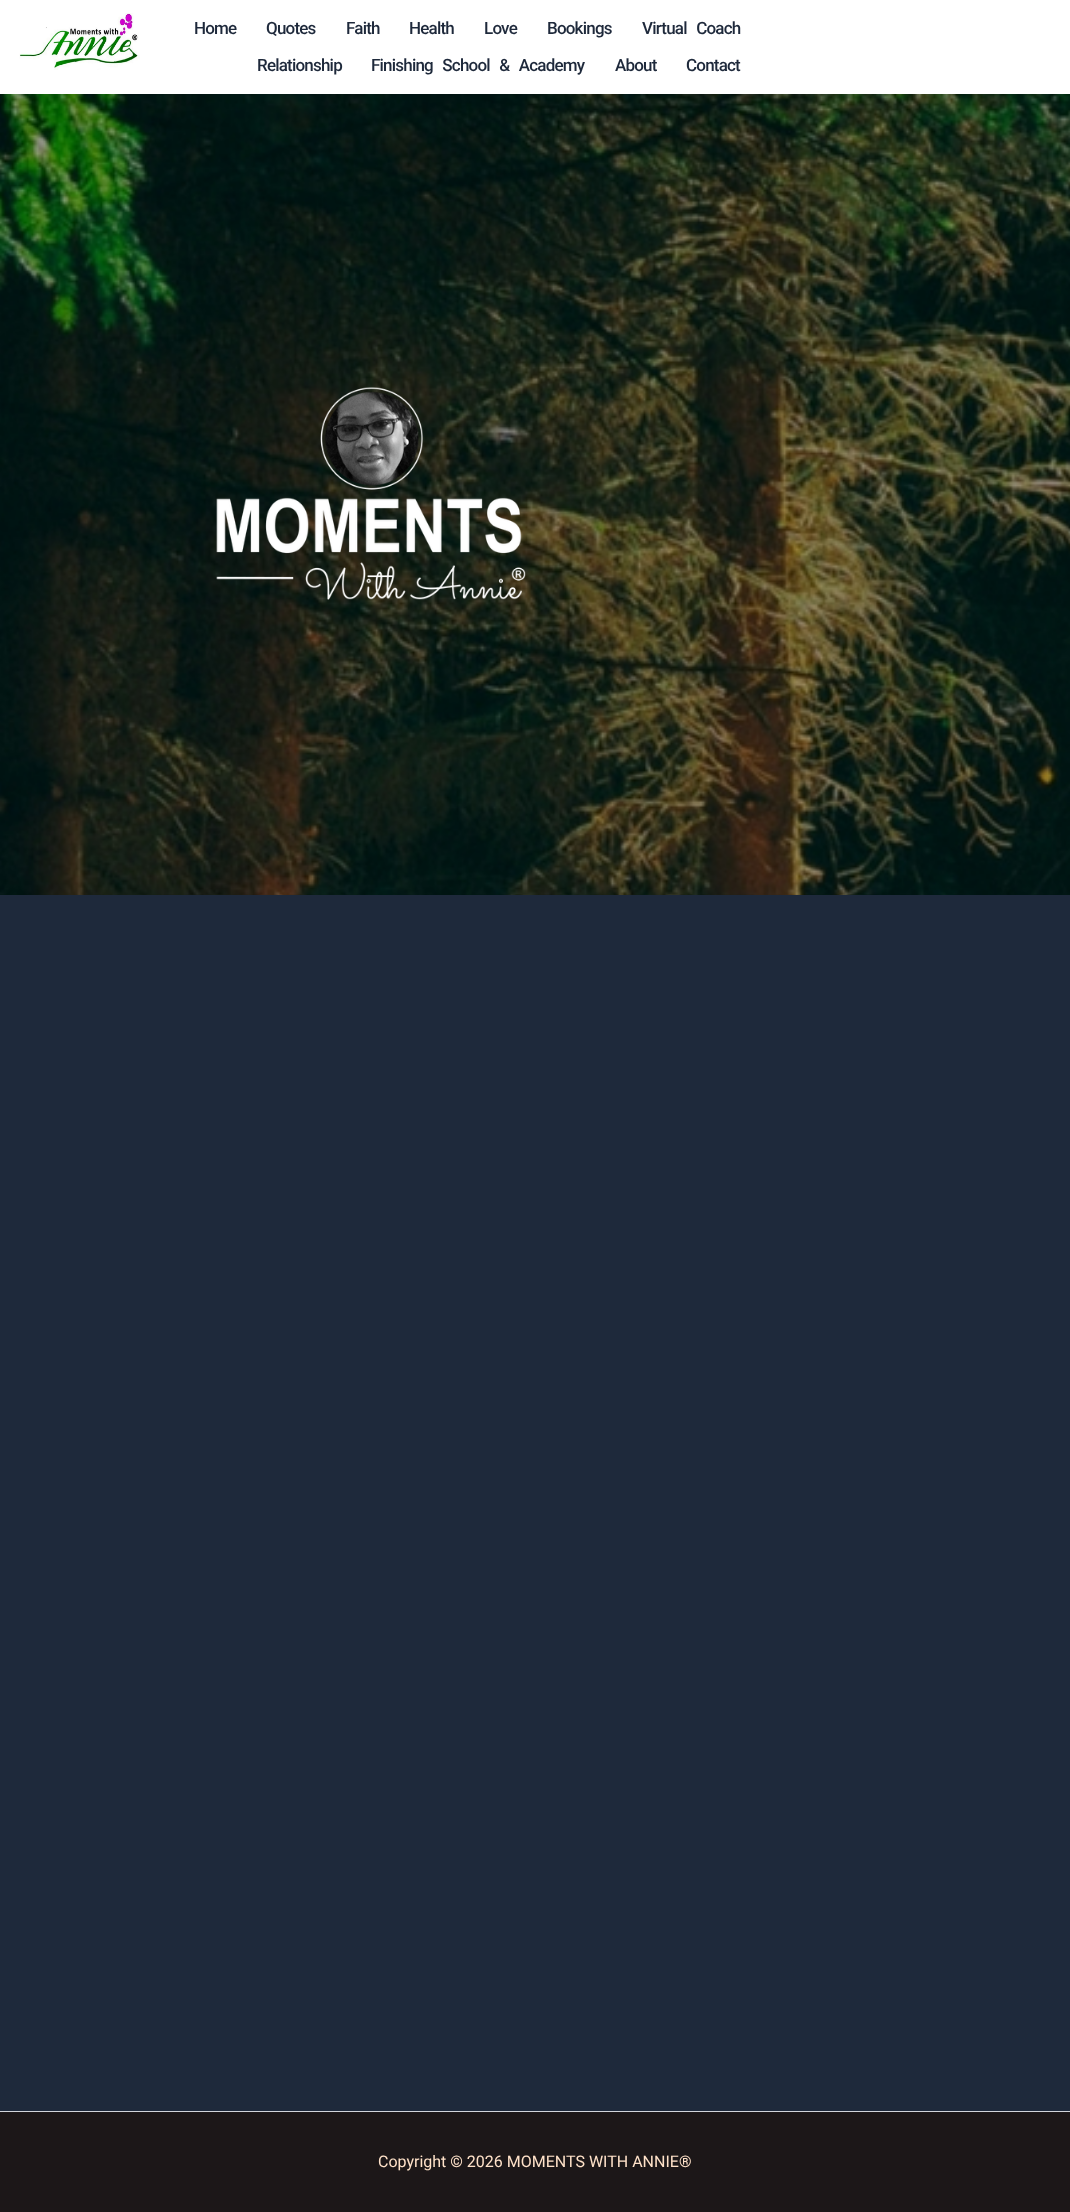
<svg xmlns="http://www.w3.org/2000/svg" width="1070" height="2212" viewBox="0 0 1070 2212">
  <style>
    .t1 { font: 500 17px Roboto; letter-spacing: -0.8px; fill: #1e293b; }
    .t2 { font: 16px Roboto; fill: #ffe2c9; }
  </style>
  <rect width="100%" height="100%" fill="#1e293b"/>
  <rect x="0" y="0" width="1070" height="94" fill="#fff"/>
  <image x="19" y="13" width="121" height="57" href="images/1.png"/>
  <text x="194" y="34" class="t1">Home</text>
  <text x="266" y="34" class="t1">Quotes</text>
  <text x="346" y="34" class="t1">Faith</text>
  <text x="409" y="34" class="t1">Health</text>
  <text x="484" y="34" class="t1">Love</text>
  <text x="547" y="34" class="t1">Bookings</text>
  <text x="642" y="34" word-spacing="6" class="t1">Virtual Coach</text>
  <text x="257" y="71" class="t1">Relationship</text>
  <text x="371" y="71" word-spacing="6" class="t1">Finishing School &amp; Academy</text>
  <text x="615" y="71" class="t1">About</text>
  <text x="686" y="71" class="t1">Contact</text>
  <image x="0" y="94" width="1070" height="801" href="images/2.png"/>
  <image x="216" y="387" width="310" height="213" href="images/3.png"/>
  <rect x="0" y="2112" width="1070" height="100" fill="#1c1718"/>
  <rect x="0" y="2111" width="1070" height="1" fill="#d1d5db"/>
  <text x="378" y="2167" class="t2">Copyright © 2026 MOMENTS WITH ANNIE®</text>
</svg>
